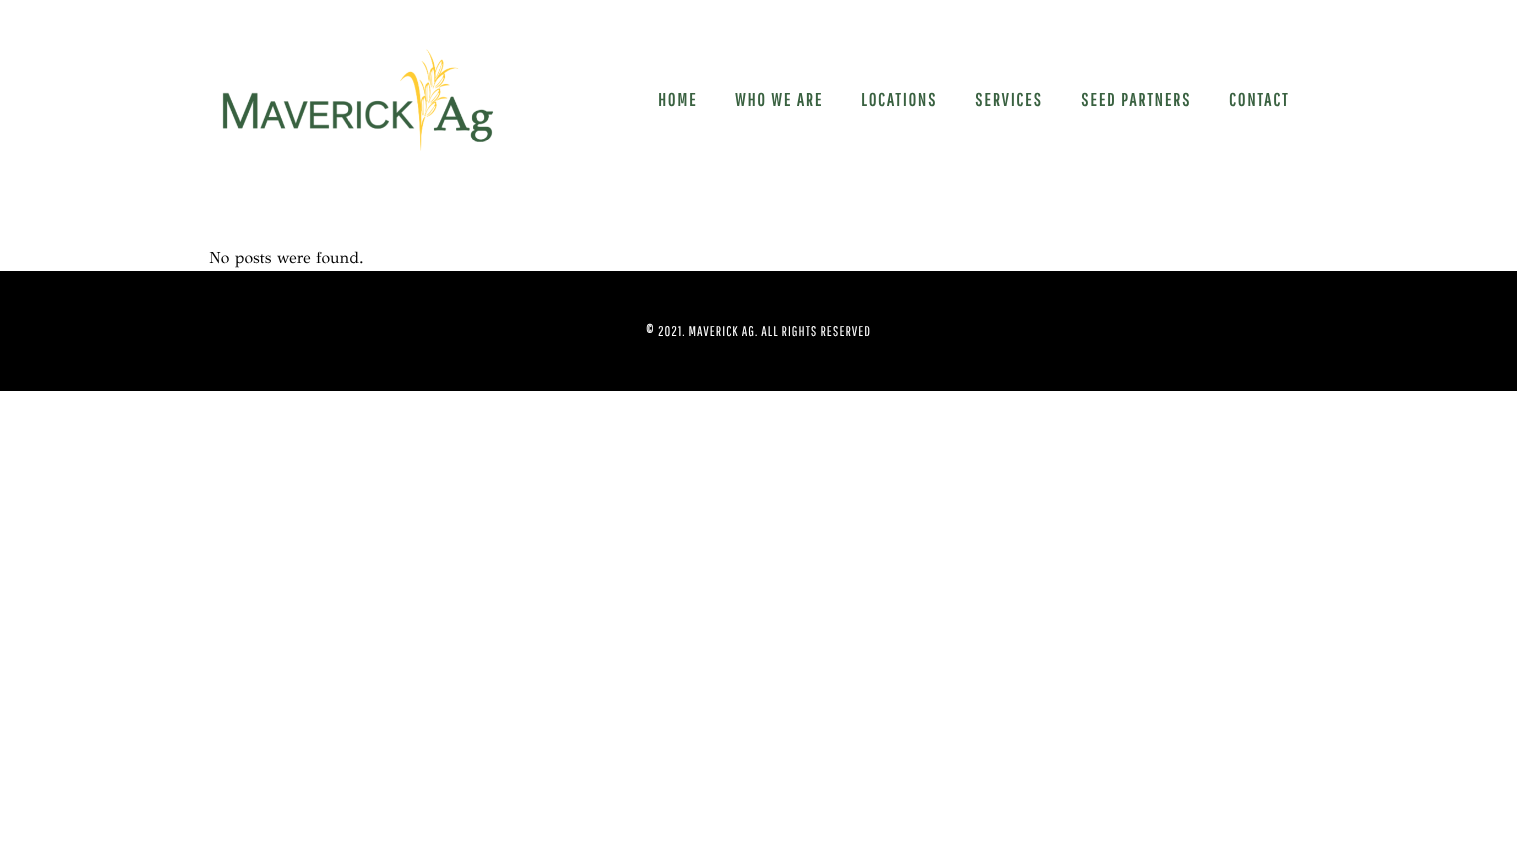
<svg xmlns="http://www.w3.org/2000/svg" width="1517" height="855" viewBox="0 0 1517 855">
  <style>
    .t1 { font: bold 18px Pathway Gothic One; letter-spacing: 2px; fill: #396140; }
    .t2 { font: 16px GFS Didot; fill: #000; }
    .t3 { font: bold 14px Pathway Gothic One; letter-spacing: 1px; fill: #fff; }
    .t4 { font: 14px Pathway Gothic One; letter-spacing: 1px; fill: #fff; }
  </style>
  <rect width="100%" height="100%" fill="#fff"/>
  <image x="222" y="49" width="272" height="102" href="images/1.png"/>
  <text x="658" y="106" class="t1">HOME</text>
  <text x="735" y="106" class="t1">WHO WE ARE</text>
  <text x="861" y="106" class="t1">LOCATIONS</text>
  <text x="975" y="106" class="t1">SERVICES</text>
  <text x="1081" y="106" class="t1">SEED PARTNERS</text>
  <text x="1229" y="106" class="t1">CONTACT</text>
  <text x="209" y="263" class="t2">No posts were found.</text>
  <rect x="0" y="271" width="1517" height="120" fill="#000"/>
  <text x="646" y="336" class="t3">©</text>
  <text x="658" y="336" class="t4">2021. MAVERICK AG. ALL RIGHTS RESERVED</text>
</svg>
